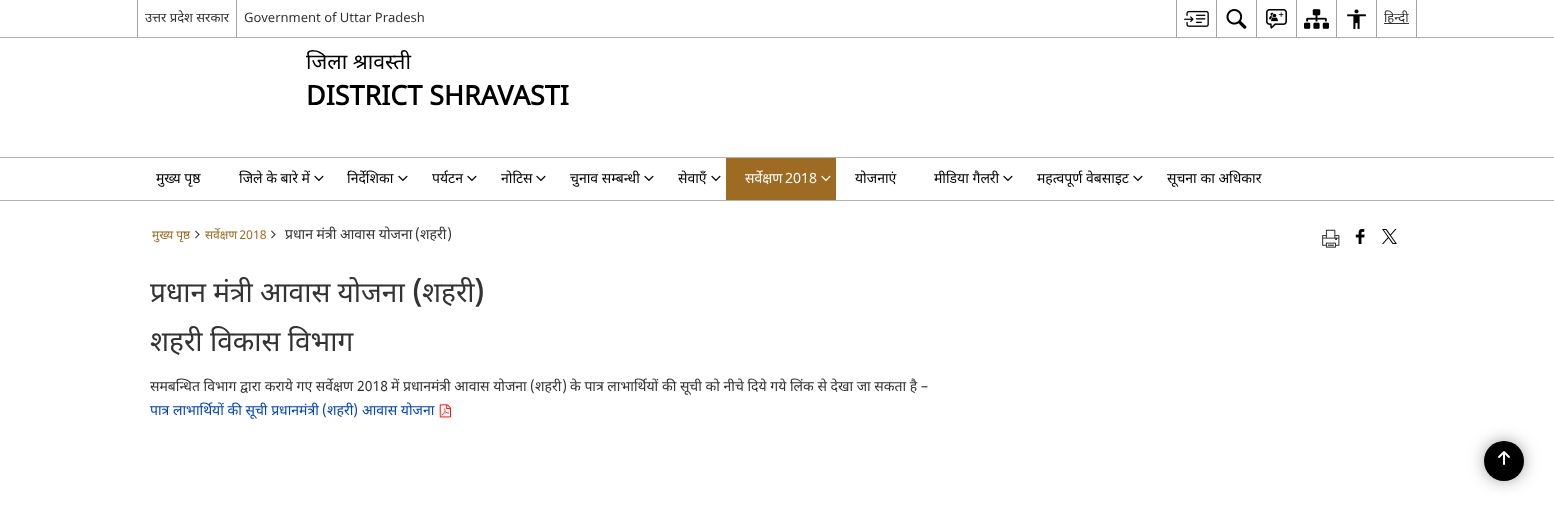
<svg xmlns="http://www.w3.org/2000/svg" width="1554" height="511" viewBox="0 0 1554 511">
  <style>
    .t1 { font: 13px Noto Sans; fill: #333; }
    .t2 { font: 13px 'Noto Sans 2'; fill: #333; }
    .t3 { font: 21.25px Noto Sans; fill: #000; }
    .t4 { font: bold 26.9px Noto Sans; fill: #000; }
    .t5 { font: 14px Noto Sans; fill: #000; }
    .t6 { font: 14px Noto Sans; fill: #fff; }
    .t7 { font: 12px Noto Sans; fill: #9e6b22; }
    .t8 { font: 14px Noto Sans; fill: #333; }
    .t9 { font: 14px 'Noto Sans 2'; fill: #333; }
    .t10 { font: 28px Noto Sans; fill: #333; }
    .t11 { font: bold 28px Noto Sans; fill: #333; }
    .t12 { font: 14px Noto Sans; fill: #0042bf; }
    .t13 { font: 14px 'Noto Sans 2'; fill: #0042bf; }
  </style>
  <rect width="100%" height="100%" fill="#fff"/>
  <rect x="0" y="37" width="1554" height="1" fill="#ababab"/>
  <rect x="137" y="0" width="1" height="37" fill="#a3a3a3"/>
  <text x="145" y="22" class="t1">उत्तर प्रदेश सरकार</text>
  <rect x="236" y="0" width="1" height="37" fill="#a3a3a3"/>
  <text x="244" y="22" class="t2">Government of Uttar Pradesh</text>
  <rect x="1176" y="0" width="1" height="37" fill="#a3a3a3"/>
  <image x="1184" y="10" width="25" height="17" href="images/1.png"/>
  <rect x="1216" y="0" width="1" height="37" fill="#a3a3a3"/>
  <image x="1226" y="9" width="21" height="20" href="images/2.png"/>
  <rect x="1256" y="0" width="1" height="37" fill="#a3a3a3"/>
  <image x="1266" y="9" width="21" height="20" href="images/3.png"/>
  <rect x="1296" y="0" width="1" height="37" fill="#a3a3a3"/>
  <image x="1304" y="9" width="25" height="20" href="images/4.png"/>
  <rect x="1336" y="0" width="1" height="37" fill="#a3a3a3"/>
  <image x="1347" y="9" width="19" height="20" href="images/5.png"/>
  <rect x="1416" y="0" width="1" height="37" fill="#a3a3a3"/>
  <rect x="1376" y="0" width="1" height="37" fill="#a3a3a3"/>
  <rect x="1384" y="23" width="25" height="1" fill="#333"/>
  <text x="1384" y="22" class="t1">हिन्दी</text>
  <text x="306" y="69" class="t3">जिला श्रावस्ती</text>
  <text x="306" y="105" class="t4">DISTRICT SHRAVASTI</text>
  <rect x="0" y="157" width="1554" height="1" fill="#b3b3b3"/>
  <rect x="0" y="200" width="1554" height="1" fill="#b3b3b3"/>
  <text x="156" y="183" class="t5">मुख्य पृष्ठ</text>
  <text x="239" y="183" class="t5">जिले के बारे में</text>
  <image x="314" y="175" width="10" height="7" href="images/6.png"/>
  <text x="347" y="183" class="t5">निर्देशिका</text>
  <image x="398" y="175" width="10" height="7" href="images/6.png"/>
  <text x="432" y="183" class="t5">पर्यटन</text>
  <image x="467" y="175" width="10" height="7" href="images/6.png"/>
  <text x="501" y="183" class="t5">नोटिस</text>
  <image x="536" y="175" width="10" height="7" href="images/6.png"/>
  <text x="570" y="183" class="t5">चुनाव सम्बन्धी</text>
  <image x="644" y="175" width="10" height="7" href="images/6.png"/>
  <text x="678" y="183" class="t5">सेवाएँ</text>
  <image x="711" y="175" width="10" height="7" href="images/6.png"/>
  <rect x="726" y="158" width="110" height="42" fill="#9e6b22"/>
  <text x="745" y="183" word-spacing="-1" class="t6">सर्वेक्षण 2018</text>
  <image x="821" y="175" width="10" height="7" href="images/7.png"/>
  <text x="855" y="183" class="t5">योजनाएं</text>
  <text x="934" y="183" class="t5">मीडिया गैलरी</text>
  <image x="1003" y="175" width="10" height="7" href="images/6.png"/>
  <text x="1037" y="183" class="t5">महत्वपूर्ण वेबसाइट</text>
  <image x="1133" y="175" width="10" height="7" href="images/6.png"/>
  <text x="1167" y="183" class="t5">सूचना का अधिकार</text>
  <text x="152" y="239" class="t7">मुख्य पृष्ठ</text>
  <image x="195" y="230" width="5" height="9" href="images/8.png"/>
  <text x="205" y="239" word-spacing="-1" class="t7">सर्वेक्षण 2018</text>
  <image x="271" y="230" width="5" height="9" href="images/8.png"/>
  <text x="285" y="239" class="t8">प्रधान मंत्री आवास योजना</text>
  <text x="415" y="239" class="t9">(</text>
  <text x="420" y="239" class="t8">शहरी</text>
  <text x="447" y="239" class="t9">)</text>
  <image x="1322" y="229" width="18" height="19" href="images/9.png"/>
  <image x="1355" y="229" width="10" height="15" href="images/10.png"/>
  <image x="1382" y="229" width="15" height="15" href="images/11.png"/>
  <text x="150" y="302" class="t10">प्रधान मंत्री आवास योजना</text>
  <text x="412" y="302" class="t11">(</text>
  <text x="422" y="302" class="t10">शहरी</text>
  <text x="474" y="302" class="t11">)</text>
  <text x="150" y="351" class="t10">शहरी विकास विभाग</text>
  <text x="150" y="391" class="t8">समबन्धित विभाग द्वारा कराये गए सर्वेक्षण</text>
  <text x="357" y="391" class="t9">2018</text>
  <text x="391" y="391" class="t8">में प्रधानमंत्री आवास योजना</text>
  <text x="530" y="391" class="t9">(</text>
  <text x="535" y="391" class="t8">शहरी</text>
  <text x="562" y="391" class="t9">)</text>
  <text x="570" y="391" class="t8">के पात्र लाभार्थियों की सूची को नीचे दिये गये लिंक से देखा जा सकता है</text>
  <text x="921" y="391" class="t9">–</text>
  <text x="150" y="415" class="t12">पात्र लाभार्थियों की सूची प्रधानमंत्री</text>
  <text x="322" y="415" class="t13">(</text>
  <text x="327" y="415" class="t12">शहरी</text>
  <text x="353" y="415" class="t13">)</text>
  <text x="362" y="415" class="t12">आवास योजना</text>
  <image x="439" y="404" width="12" height="14" href="images/12.png"/>
  <rect x="1489" y="446" width="30" height="30" rx="15" fill="#3c3c3c" filter="blur(9.5px)"/>
  <circle cx="1504" cy="461" r="20" fill="#000"/>
  <image x="1498" y="451" width="12" height="14" href="images/13.png"/>
</svg>
